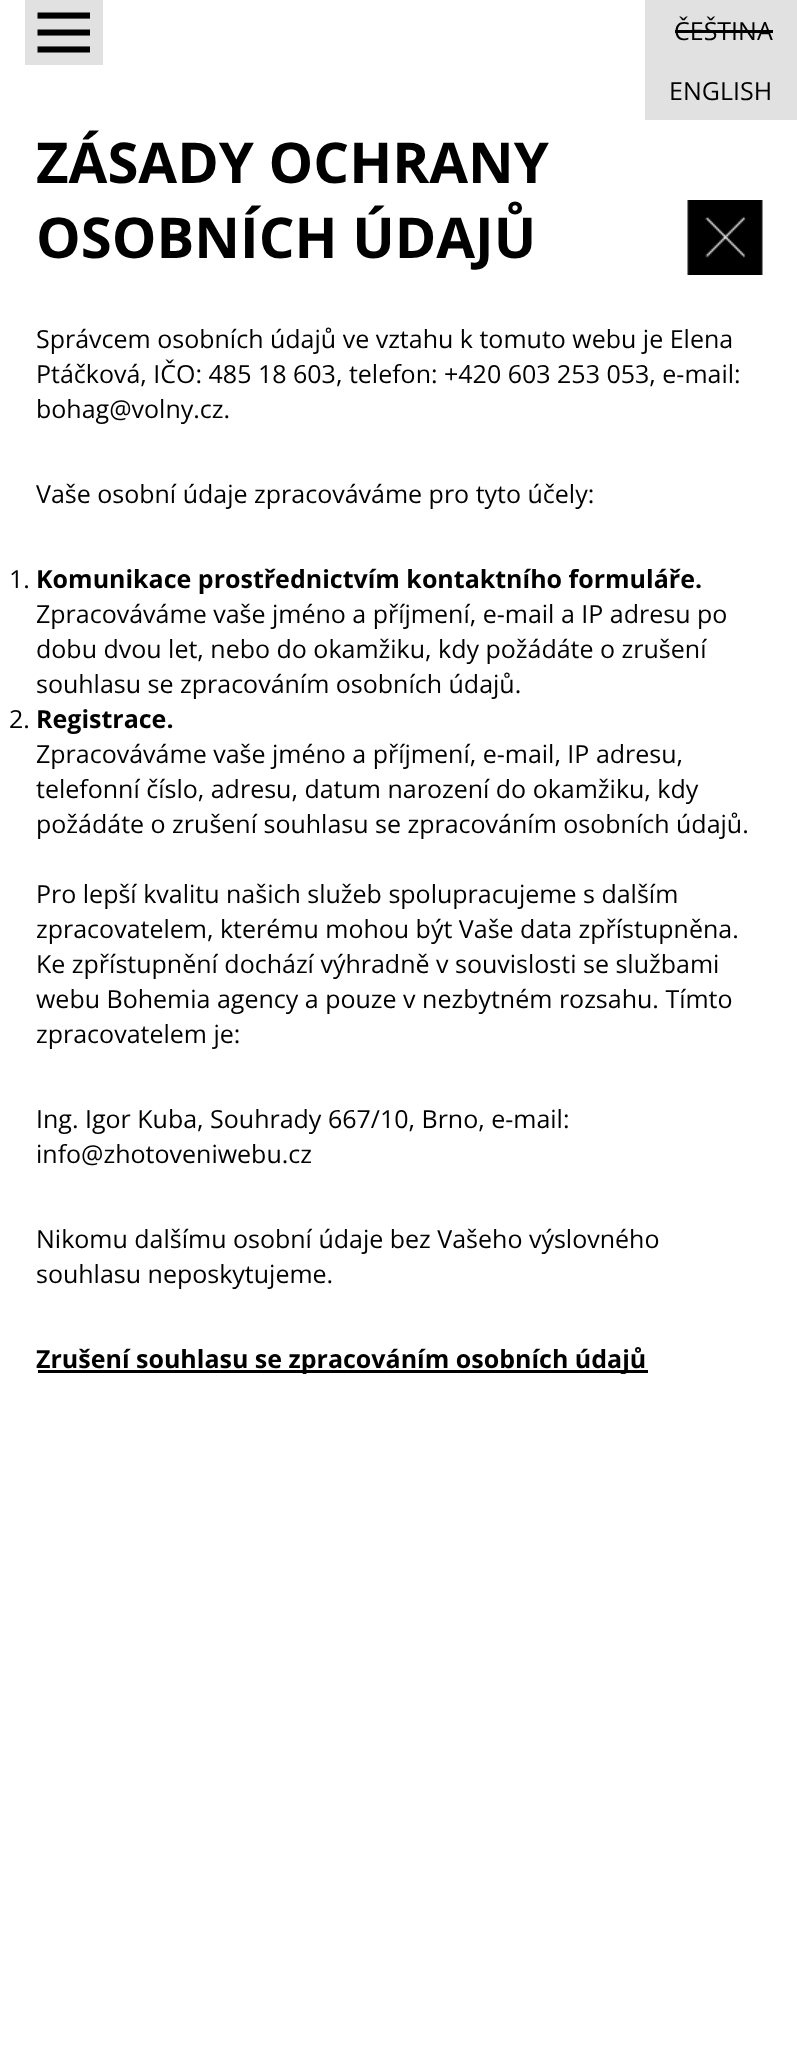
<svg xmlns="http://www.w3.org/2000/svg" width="797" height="2066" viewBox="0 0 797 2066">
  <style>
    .t1 { font: 25px Open Sans; fill: #000; }
    .t2 { font: bold 56.25px Open Sans; fill: #000; }
    .t3 { font: bold 25px Open Sans; fill: #000; }
  </style>
  <rect width="100%" height="100%" fill="#fff"/>
  <rect x="25" y="0" width="78" height="65" fill="#e1e1e1"/>
  <image x="37" y="12" width="53" height="41" href="images/1.png"/>
  <rect x="645" y="0" width="152" height="120" fill="#e1e1e1"/>
  <text x="674" y="40" class="t1">ČEŠTINA</text>
  <rect x="675" y="30" width="98" height="3" fill="#000"/>
  <text x="669" y="100" class="t1">ENGLISH</text>
  <text x="36" y="183" class="t2">ZÁSADY OCHRANY</text>
  <text x="36" y="258" class="t2">OSOBNÍCH ÚDAJŮ</text>
  <image x="687" y="200" width="76" height="75" href="images/2.png"/>
  <text x="36" y="348" class="t1">Správcem osobních údajů ve vztahu k tomuto webu je Elena</text>
  <text x="36" y="383" class="t1">Ptáčková, IČO: 485 18 603, telefon: +420 603 253 053, e-mail:</text>
  <text x="36" y="418" class="t1">bohag@volny.cz.</text>
  <text x="36" y="503" class="t1">Vaše osobní údaje zpracováváme pro tyto účely:</text>
  <text x="9" y="588" class="t1">1.</text>
  <text x="36" y="588" class="t3">Komunikace prostřednictvím kontaktního formuláře.</text>
  <text x="36" y="623" class="t1">Zpracováváme vaše jméno a příjmení, e-mail a IP adresu po</text>
  <text x="36" y="658" class="t1">dobu dvou let, nebo do okamžiku, kdy požádáte o zrušení</text>
  <text x="36" y="693" class="t1">souhlasu se zpracováním osobních údajů.</text>
  <text x="9" y="728" class="t1">2.</text>
  <text x="36" y="728" class="t3">Registrace.</text>
  <text x="36" y="763" class="t1">Zpracováváme vaše jméno a příjmení, e-mail, IP adresu,</text>
  <text x="36" y="798" class="t1">telefonní číslo, adresu, datum narození do okamžiku, kdy</text>
  <text x="36" y="833" class="t1">požádáte o zrušení souhlasu se zpracováním osobních údajů.</text>
  <text x="36" y="903" class="t1">Pro lepší kvalitu našich služeb spolupracujeme s dalším</text>
  <text x="36" y="938" class="t1">zpracovatelem, kterému mohou být Vaše data zpřístupněna.</text>
  <text x="36" y="973" class="t1">Ke zpřístupnění dochází výhradně v souvislosti se službami</text>
  <text x="36" y="1008" class="t1">webu Bohemia agency a pouze v nezbytném rozsahu. Tímto</text>
  <text x="36" y="1043" class="t1">zpracovatelem je:</text>
  <text x="36" y="1128" class="t1">Ing. Igor Kuba, Souhrady 667/10, Brno, e-mail:</text>
  <text x="36" y="1163" class="t1">info@zhotoveniwebu.cz</text>
  <text x="36" y="1248" class="t1">Nikomu dalšímu osobní údaje bez Vašeho výslovného</text>
  <text x="36" y="1283" class="t1">souhlasu neposkytujeme.</text>
  <rect x="38" y="1370" width="610" height="3" fill="#000"/>
  <text x="36" y="1368" class="t3">Zrušení souhlasu se zpracováním osobních údajů</text>
</svg>
